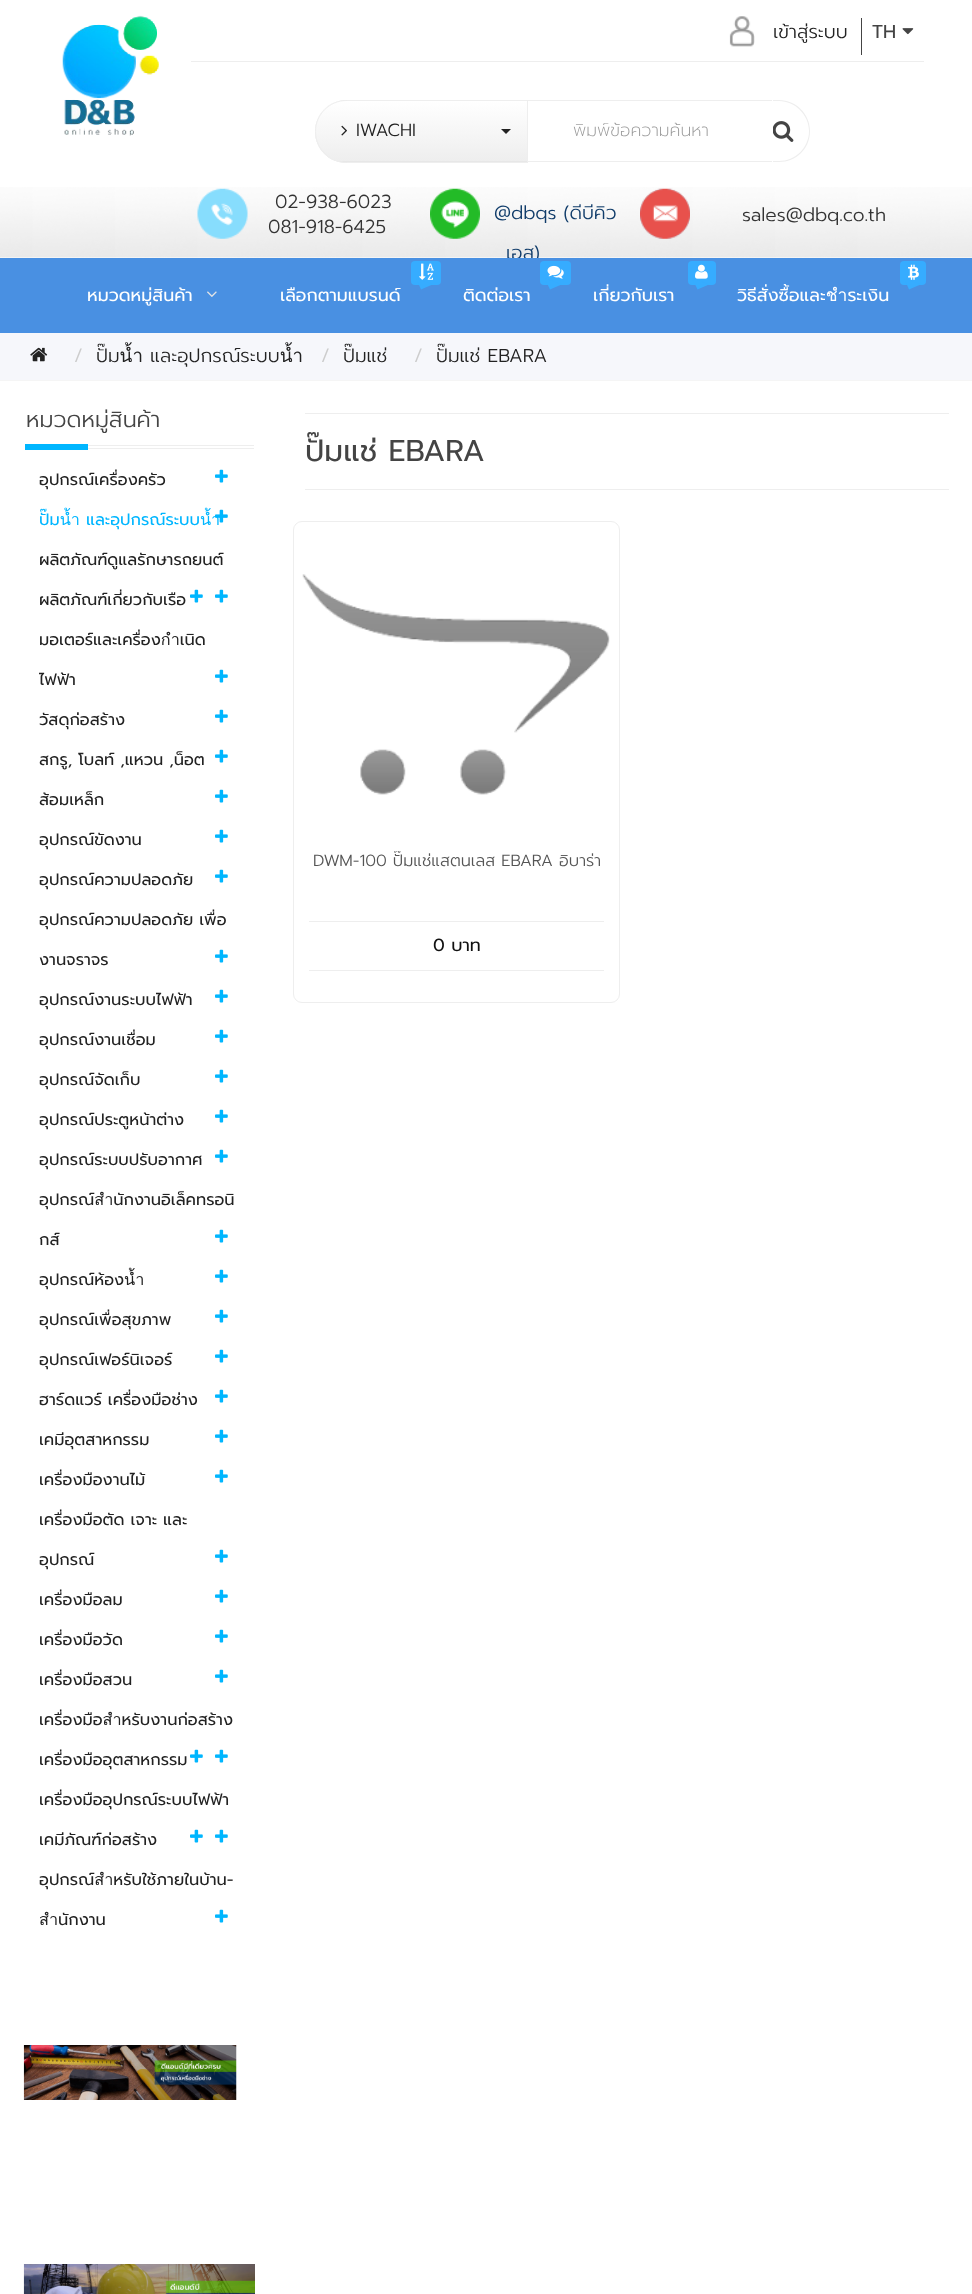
<svg xmlns="http://www.w3.org/2000/svg" width="972" height="2294" viewBox="0 0 972 2294">
  <style>
    .t1 { font: 300 18.75px Prompt; fill: #222; }
    .t2 { font: 18.75px Prompt; fill: #444; }
    .t3 { font: 300 17.5px Prompt; fill: #222; }
    .t4 { font: 200 17.5px Prompt; fill: #999; }
    .t5 { font: 300 18.75px Prompt; fill: #333; }
    .t6 { font: 300 18.75px Prompt; fill: #103c6a; }
    .t7 { font: 17.5px Prompt; fill: #fff; }
    .t8 { font: 300 18.75px Prompt; fill: #ccc; }
    .t9 { font: 300 22.5px Prompt; fill: #444; }
    .t10 { font: 16.25px Prompt; fill: #222; }
    .t11 { font: 16.25px Prompt; fill: #00b6ff; }
    .t12 { font: 30px Prompt; fill: #444; }
    .t13 { font: 300 16.25px Prompt; fill: #555; }
    .t14 { font: 17.5px Prompt; fill: #111; }
  </style>
  <defs>
    <clipPath id="clip1"><path d="M346.5 100H528V163H346.5C329 163 315 149 315 131.5C315 114 329 100 346.5 100Z"/></clipPath>
    <linearGradient id="g1" gradientUnits="userSpaceOnUse" x1="421" y1="101" x2="421" y2="161"><stop offset="0" stop-color="#fff"/><stop offset="1" stop-color="#eee"/></linearGradient>
    <clipPath id="clip2"><rect x="313" y="851" width="288" height="63"/></clipPath>
  </defs>
  <rect width="100%" height="100%" fill="#fff"/>
  <rect x="0" y="380" width="972" height="1" fill="#f5f5f5"/>
  <image x="0" y="187" width="972" height="71" href="images/1.png"/>
  <image x="62" y="15" width="97" height="121" href="images/2.png"/>
  <rect x="191" y="61" width="733" height="1" fill="#eee"/>
  <image x="729" y="16" width="26" height="31" href="images/3.png"/>
  <text x="773" y="38" class="t1">เข้าสู่ระบบ</text>
  <rect x="861" y="18" width="1" height="37" fill="#444"/>
  <text x="872" y="38" class="t2">TH</text>
  <image x="902" y="28" width="12" height="7" href="images/4.png"/>
  <path d="M772 100H779C796 100 810 114 810 131C810 149 796 162 779 162H772ZM772 101H779C795 101 809 115 809 131C809 148 795 161 779 161H772Z" fill="#eee" fill-rule="evenodd"/>
  <path d="M347.5 100H773V163H347.5C330 163 316 149 316 131.5C316 114 330 100 347.5 100Z" fill="#fff"/>
  <path d="M348 100H772V162H348C330 162 316 149 316 131C316 114 330 100 348 100ZM348 101H772V161H348C331 161 318 148 318 131C318 115 331 101 348 101Z" fill="#eee" fill-rule="evenodd"/>
  <rect x="341" y="101" width="213" height="60" rx="2.5" fill="#fff"/>
  <path d="M346.5 100H528V163H346.5C329 163 315 149 315 131.5C315 114 329 100 346.5 100Z" fill="#e7e7e7"/>
  <g clip-path="url(#clip1)">
    <rect x="315" y="101" width="212" height="60" fill="url(#g1)"/>
  </g>
  <path d="M346.5 100.5H527.5V162.5H346.5C329.5 162.5 315.5 148.5 315.5 131.5C315.5 114.5 329.5 100.5 346.5 100.5Z" fill="none" stroke="#eee"/>
  <image x="341" y="125" width="6" height="11" href="images/5.png"/>
  <text x="356" y="136" class="t3">IWACHI</text>
  <path d="M501 129H511L506 134Z" fill="#222"/>
  <text x="573" y="136" class="t4">พิมพ์ข้อความค้นหา</text>
  <image x="773" y="121" width="21" height="21" href="images/6.png"/>
  <image x="197" y="188" width="51" height="51" href="images/7.png"/>
  <text x="275" y="208" class="t5">02-938-6023</text>
  <text x="268" y="233" class="t5">081-918-6425</text>
  <image x="430" y="188" width="50" height="51" href="images/8.png"/>
  <text x="494" y="219" class="t6">@dbqs (ดีบีคิว</text>
  <text x="506" y="259" class="t6">เอส)</text>
  <image x="640" y="188" width="50" height="51" href="images/9.png"/>
  <text x="742" y="221" class="t5">sales@dbq.co.th</text>
  <rect x="0" y="258" width="972" height="75" fill="#4990e2"/>
  <text x="87" y="301" class="t7">หมวดหมู่สินค้า</text>
  <image x="207" y="291" width="10" height="6" href="images/10.png"/>
  <rect x="411" y="261" width="30" height="24" rx="4" fill="#36acff"/>
  <image x="419" y="263" width="15" height="17" href="images/11.png"/>
  <path d="M421 289.5L416 278L432.5 284.5Z" fill="#36acff"/>
  <text x="280" y="301" class="t7">เลือกตามแบรนด์</text>
  <rect x="540" y="261" width="31" height="24" rx="4" fill="#36acff"/>
  <image x="547" y="265" width="17" height="14" href="images/12.png"/>
  <path d="M550 289.5L544.5 278L561.5 284.5Z" fill="#36acff"/>
  <text x="463" y="301" class="t7">ติดต่อเรา</text>
  <rect x="688" y="261" width="28" height="24" rx="4" fill="#36acff"/>
  <image x="695" y="264" width="13" height="15" href="images/13.png"/>
  <path d="M697.5 289.5L692 278L709 284.5Z" fill="#36acff"/>
  <text x="593" y="301" class="t7">เกี่ยวกับเรา</text>
  <rect x="900" y="261" width="26" height="24" rx="4" fill="#36acff"/>
  <image x="908" y="264" width="11" height="16" href="images/14.png"/>
  <path d="M909 289.5L904 278L920.5 284.5Z" fill="#36acff"/>
  <text x="737" y="301" class="t7">วิธีสั่งซื้อและชำระเงิน</text>
  <rect x="0" y="333" width="972" height="47" fill="#f6f7fb"/>
  <image x="30" y="347" width="18" height="15" href="images/15.png"/>
  <text x="74" y="362" class="t8">/</text>
  <text x="96" y="362" class="t1">ปั๊มน้ำ และอุปกรณ์ระบบน้ำ</text>
  <text x="321" y="362" class="t8">/</text>
  <text x="343" y="362" class="t1">ปั๊มแช่</text>
  <text x="414" y="362" class="t8">/</text>
  <text x="436" y="362" class="t1">ปั๊มแช่ EBARA</text>
  <text x="26" y="427" class="t9">หมวดหมู่สินค้า</text>
  <rect x="88" y="445" width="166" height="1" fill="#eee"/>
  <rect x="88" y="448" width="166" height="1" fill="#eee"/>
  <rect x="25" y="444" width="63" height="6" fill="#00b6ff"/>
  <text x="39" y="485" class="t10">อุปกรณ์เครื่องครัว</text>
  <image x="215" y="469" width="13" height="14" href="images/16.png"/>
  <text x="39" y="525" class="t11">ปั๊มน้ำ และอุปกรณ์ระบบน้ำ</text>
  <image x="215" y="509" width="13" height="14" href="images/16.png"/>
  <text x="39" y="565" class="t10">ผลิตภัณฑ์ดูแลรักษารถยนต์</text>
  <image x="215" y="589" width="13" height="14" href="images/16.png"/>
  <text x="39" y="605" class="t10">ผลิตภัณฑ์เกี่ยวกับเรือ</text>
  <image x="190" y="589" width="13" height="14" href="images/16.png"/>
  <text x="39" y="645" class="t10">มอเตอร์และเครื่องกำเนิด</text>
  <text x="39" y="685" class="t10">ไฟฟ้า</text>
  <image x="215" y="669" width="13" height="14" href="images/16.png"/>
  <text x="39" y="725" class="t10">วัสดุก่อสร้าง</text>
  <image x="215" y="709" width="13" height="14" href="images/16.png"/>
  <text x="39" y="765" class="t10">สกรู, โบลท์ ,แหวน ,น็อต</text>
  <image x="215" y="749" width="13" height="14" href="images/16.png"/>
  <text x="39" y="805" class="t10">ส้อมเหล็ก</text>
  <image x="215" y="789" width="13" height="14" href="images/16.png"/>
  <text x="39" y="845" class="t10">อุปกรณ์ขัดงาน</text>
  <image x="215" y="829" width="13" height="14" href="images/16.png"/>
  <text x="39" y="885" class="t10">อุปกรณ์ความปลอดภัย</text>
  <image x="215" y="869" width="13" height="14" href="images/16.png"/>
  <text x="39" y="925" class="t10">อุปกรณ์ความปลอดภัย เพื่อ</text>
  <text x="39" y="965" class="t10">งานจราจร</text>
  <image x="215" y="949" width="13" height="14" href="images/16.png"/>
  <text x="39" y="1005" class="t10">อุปกรณ์งานระบบไฟฟ้า</text>
  <image x="215" y="989" width="13" height="14" href="images/16.png"/>
  <text x="39" y="1045" class="t10">อุปกรณ์งานเชื่อม</text>
  <image x="215" y="1029" width="13" height="14" href="images/16.png"/>
  <text x="39" y="1085" class="t10">อุปกรณ์จัดเก็บ</text>
  <image x="215" y="1069" width="13" height="14" href="images/16.png"/>
  <text x="39" y="1125" class="t10">อุปกรณ์ประตูหน้าต่าง</text>
  <image x="215" y="1109" width="13" height="14" href="images/16.png"/>
  <text x="39" y="1165" class="t10">อุปกรณ์ระบบปรับอากาศ</text>
  <image x="215" y="1149" width="13" height="14" href="images/16.png"/>
  <text x="39" y="1205" class="t10">อุปกรณ์สำนักงานอิเล็คทรอนิ</text>
  <text x="39" y="1245" class="t10">กส์</text>
  <image x="215" y="1229" width="13" height="14" href="images/16.png"/>
  <text x="39" y="1285" class="t10">อุปกรณ์ห้องน้ำ</text>
  <image x="215" y="1269" width="13" height="14" href="images/16.png"/>
  <text x="39" y="1325" class="t10">อุปกรณ์เพื่อสุขภาพ</text>
  <image x="215" y="1309" width="13" height="14" href="images/16.png"/>
  <text x="39" y="1365" class="t10">อุปกรณ์เฟอร์นิเจอร์</text>
  <image x="215" y="1349" width="13" height="14" href="images/16.png"/>
  <text x="39" y="1405" class="t10">ฮาร์ดแวร์ เครื่องมือช่าง</text>
  <image x="215" y="1389" width="13" height="14" href="images/16.png"/>
  <text x="39" y="1445" class="t10">เคมีอุตสาหกรรม</text>
  <image x="215" y="1429" width="13" height="14" href="images/16.png"/>
  <text x="39" y="1485" class="t10">เครื่องมืองานไม้</text>
  <image x="215" y="1469" width="13" height="14" href="images/16.png"/>
  <text x="39" y="1525" class="t10">เครื่องมือตัด เจาะ และ</text>
  <text x="39" y="1565" class="t10">อุปกรณ์</text>
  <image x="215" y="1549" width="13" height="14" href="images/16.png"/>
  <text x="39" y="1605" class="t10">เครื่องมือลม</text>
  <image x="215" y="1589" width="13" height="14" href="images/16.png"/>
  <text x="39" y="1645" class="t10">เครื่องมือวัด</text>
  <image x="215" y="1629" width="13" height="14" href="images/16.png"/>
  <text x="39" y="1685" class="t10">เครื่องมือสวน</text>
  <image x="215" y="1669" width="13" height="14" href="images/16.png"/>
  <text x="39" y="1725" class="t10">เครื่องมือสำหรับงานก่อสร้าง</text>
  <image x="215" y="1749" width="13" height="14" href="images/16.png"/>
  <text x="39" y="1765" class="t10">เครื่องมืออุตสาหกรรม</text>
  <image x="190" y="1749" width="13" height="14" href="images/16.png"/>
  <text x="39" y="1805" class="t10">เครื่องมืออุปกรณ์ระบบไฟฟ้า</text>
  <image x="215" y="1829" width="13" height="14" href="images/16.png"/>
  <text x="39" y="1845" class="t10">เคมีภัณฑ์ก่อสร้าง</text>
  <image x="190" y="1829" width="13" height="14" href="images/16.png"/>
  <text x="39" y="1885" class="t10">อุปกรณ์สำหรับใช้ภายในบ้าน-</text>
  <text x="39" y="1925" class="t10">สำนักงาน</text>
  <image x="215" y="1909" width="13" height="14" href="images/16.png"/>
  <image x="23" y="2045" width="214" height="55" href="images/17.png"/>
  <image x="23" y="2264" width="232" height="30" href="images/18.png"/>
  <rect x="305" y="413" width="644" height="1" fill="#eee"/>
  <rect x="305" y="489" width="644" height="1" fill="#eee"/>
  <text x="305" y="461" class="t12">ปั๊มแช่ EBARA</text>
  <rect x="293.5" y="521.5" width="326" height="481" rx="8.5" fill="none" stroke="#eee"/>
  <image x="302" y="574" width="308" height="221" href="images/19.png"/>
  <g clip-path="url(#clip2)">
    <text x="313" y="866" class="t13">DWM-100 ปั๊มแช่แสตนเลส EBARA อิบาร่า</text>
  </g>
  <rect x="309" y="921" width="295" height="1" fill="#eee"/>
  <rect x="309" y="970" width="295" height="1" fill="#eee"/>
  <text x="433" y="951" class="t14">0 บาท</text>
</svg>
